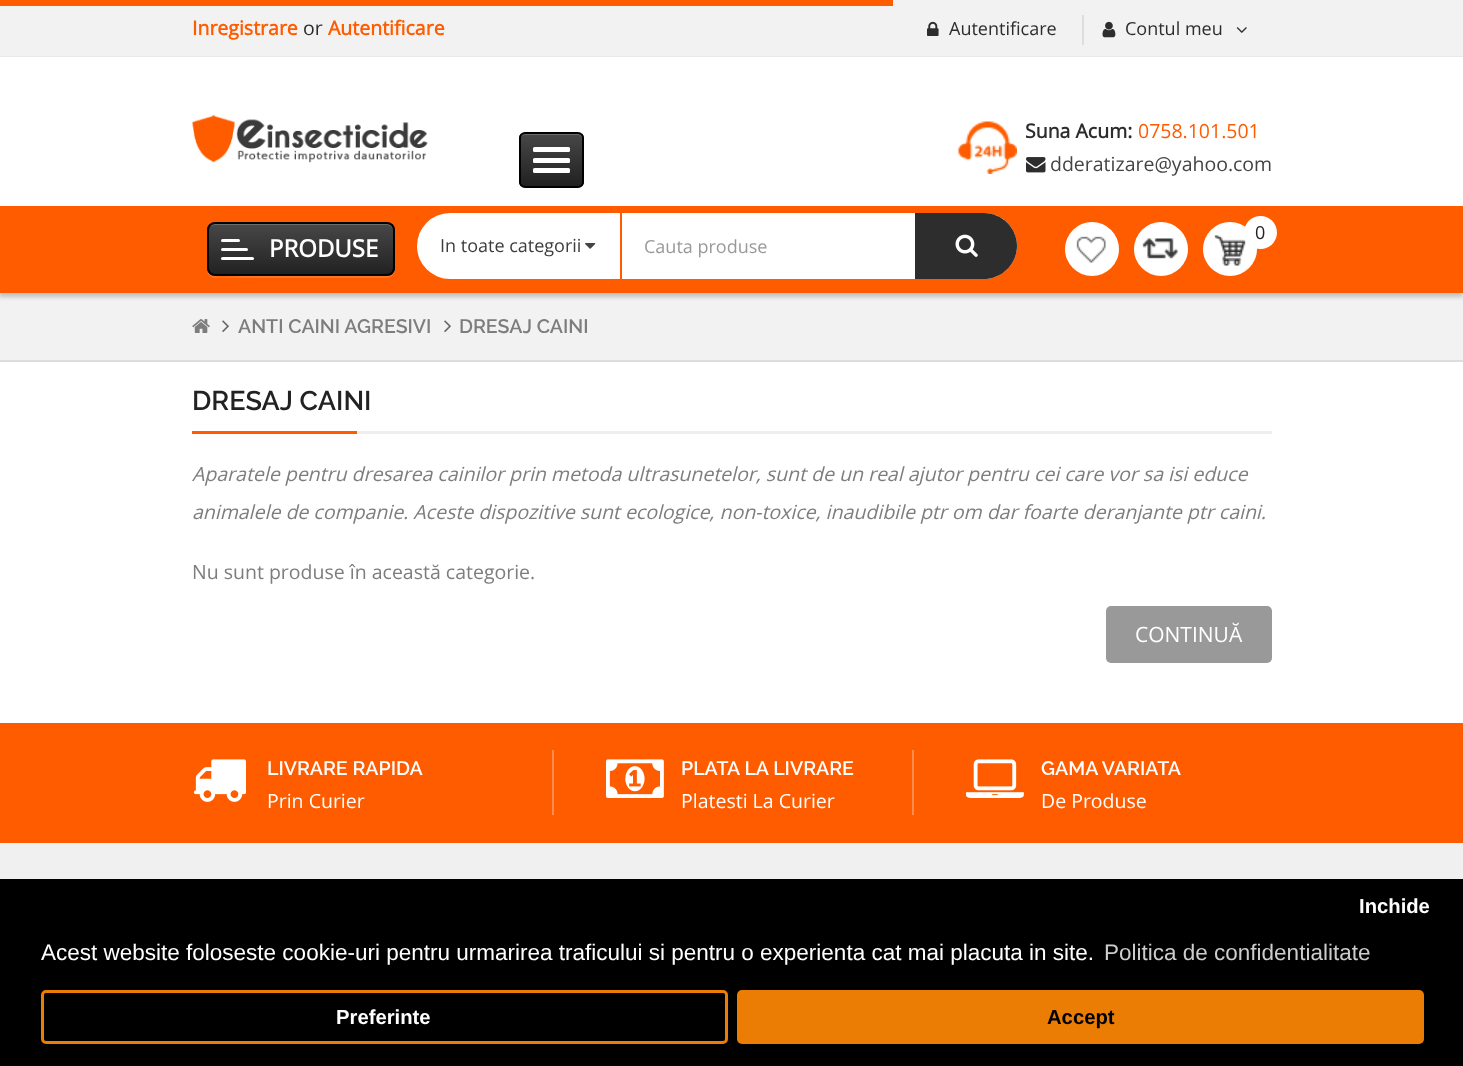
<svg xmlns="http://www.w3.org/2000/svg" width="1463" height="1066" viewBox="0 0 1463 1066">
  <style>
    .t1 { font: bold 19.5px Open Sans; fill: #ff5c00; }
    .t2 { font: 19.5px Open Sans; fill: #2d2d2d; }
    .t3 { font: 18px Open Sans; fill: #2d2d2d; }
    .t4 { font: bold 19.5px Open Sans; fill: #2d2d2d; }
    .t5 { font: 19.5px Open Sans; fill: #ff5c00; }
    .t6 { font: 19.5px Open Sans; fill: #444; }
    .t7 { font: bold 24px Open Sans; fill: #fff; }
    .t8 { font: 18px Open Sans; fill: #222; }
    .t9 { font: 18px Open Sans; fill: #3d3d3d; }
    .t10 { font: 18px Open Sans; fill: #999; }
    .t11 { font: 600 19.5px Raleway; fill: #7d7d7d; }
    .t12 { font: 600 27px Raleway; fill: #222; }
    .t13 { font: italic 19.5px Open Sans; fill: #7d7d7d; }
    .t14 { font: 19.5px Open Sans; fill: #7d7d7d; }
    .t15 { font: 21px Open Sans; fill: #fff; }
    .t16 { font: 600 19.5px Raleway; fill: #fff; }
    .t17 { font: 19.5px Open Sans; fill: #fff; }
    .t18 { font: bold 20.25px Liberation Sans; fill: #fff; }
    .t19 { font: bold 20.25px Liberation Sans; fill: #000; }
    .t20 { font: 22.5px Liberation Sans; fill: #fff; }
    .t21 { font: 22.5px Liberation Sans; fill: #ccc; }
  </style>
  <defs>
    <clipPath id="clip1"><rect x="519" y="132" width="65" height="56" rx="6"/></clipPath>
    <linearGradient id="g1" gradientUnits="userSpaceOnUse" x1="551" y1="134" x2="551" y2="186"><stop offset="0" stop-color="#474747"/><stop offset="1" stop-color="#212121"/></linearGradient>
    <clipPath id="clip2"><rect x="207" y="222" width="188" height="54" rx="8"/></clipPath>
    <linearGradient id="g2" gradientUnits="userSpaceOnUse" x1="301" y1="224" x2="301" y2="275"><stop offset="0" stop-color="#474747"/><stop offset="1" stop-color="#212121"/></linearGradient>
  </defs>
  <rect width="100%" height="100%" fill="#fff"/>
  <rect x="0" y="0" width="1463" height="56" fill="#f2f2f2"/>
  <rect x="0" y="0" width="893" height="6" fill="#ff5c00"/>
  <rect x="0" y="56" width="1463" height="1" fill="#e8e8e8"/>
  <text x="192" y="35" class="t1">Inregistrare</text>
  <text x="303" y="35" class="t2">or</text>
  <text x="328" y="35" class="t1">Autentificare</text>
  <image x="927" y="21" width="12" height="15" href="images/1.png"/>
  <text x="949" y="35" class="t3">Autentificare</text>
  <rect x="1082" y="15" width="2" height="30" fill="#ddd"/>
  <image x="1102" y="21" width="14" height="17" href="images/2.png"/>
  <text x="1125" y="35" class="t3">Contul meu</text>
  <image x="1236" y="27" width="11" height="6" href="images/3.png"/>
  <image x="192" y="114" width="236" height="49" href="images/4.png"/>
  <g clip-path="url(#clip1)">
    <rect x="519" y="134" width="65" height="52" fill="url(#g1)"/>
  </g>
  <path d="M525 135H578C580 135 582 137 582 140V139C582 136 580 134 577 134H526C524 134 523 135 522 136Z" fill="#6c6c6c"/>
  <rect x="520" y="133" width="63" height="54" rx="5" fill="none" stroke="#000" stroke-width="2"/>
  <rect x="533" y="147" width="37" height="5" rx="1.5" fill="#fff"/>
  <rect x="533" y="158" width="37" height="5" rx="1.5" fill="#fff"/>
  <rect x="533" y="168" width="37" height="5" rx="1.5" fill="#fff"/>
  <image x="958" y="121" width="59" height="53" href="images/5.png"/>
  <text x="1025" y="138" class="t4">Suna Acum:</text>
  <text x="1138" y="138" class="t5">0758.101.501</text>
  <image x="1026" y="157" width="20" height="16" href="images/6.png"/>
  <text x="1050" y="171" class="t6">dderatizare@yahoo.com</text>
  <rect x="0" y="293" width="1463" height="67" fill="#f2f2f2"/>
  <rect x="-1" y="210" width="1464" height="87" fill="#00000033" filter="blur(2px)"/>
  <rect x="0" y="206" width="1463" height="87" fill="#ff5c00"/>
  <path d="M207 268V270C207 274 211 278 215 278H387C391 278 395 274 395 270V232L394 229V262C394 268 395 276 387 276H243C229 276 207 281 207 268Z" fill="#ff7426"/>
  <g clip-path="url(#clip2)">
    <rect x="207" y="224" width="188" height="51" fill="url(#g2)"/>
  </g>
  <path d="M214 225H387C390 225 393 228 393 231C393 228 392 225 388 224H214C212 224 211 225 210 227C211 226 213 225 214 225Z" fill="#6c6c6c"/>
  <rect x="208" y="223" width="186" height="52" rx="7" fill="none" stroke="#000" stroke-width="2"/>
  <rect x="221" y="239" width="19" height="3" rx="1.5" fill="#fff"/>
  <text x="269" y="257" class="t7">PRODUSE</text>
  <rect x="221" y="248" width="27" height="3" rx="1.5" fill="#fff"/>
  <rect x="221" y="257" width="33" height="3" rx="1.5" fill="#fff"/>
  <circle cx="1092" cy="249" r="27" fill="#fff"/>
  <image x="1076" y="236" width="30" height="27" href="images/7.png"/>
  <circle cx="1161" cy="249" r="27" fill="#fff"/>
  <image x="1142" y="238" width="36" height="21" href="images/8.png"/>
  <circle cx="1230" cy="249" r="27" fill="#fff"/>
  <image x="1214" y="235" width="32" height="31" href="images/9.png"/>
  <circle cx="1260.5" cy="232.5" r="16.5" fill="#fff"/>
  <text x="1255" y="239" class="t8">0</text>
  <rect x="417" y="213" width="600" height="66" rx="33" fill="#fff"/>
  <text x="440" y="252" class="t9">In toate categorii</text>
  <image x="585" y="243" width="11" height="6" href="images/10.png"/>
  <rect x="620" y="213" width="2" height="66" fill="#ff5c00"/>
  <text x="644" y="253" class="t10">Cauta produse</text>
  <path d="M915 213H984C1002 213 1017 228 1017 246C1017 264 1002 279 984 279H915Z" fill="#2d2d2d"/>
  <image x="955" y="234" width="23" height="23" href="images/11.png"/>
  <rect x="0" y="360" width="1463" height="2" fill="#ddd"/>
  <image x="192" y="319" width="18" height="14" href="images/12.png"/>
  <image x="222" y="320" width="7" height="12" href="images/13.png"/>
  <text x="238" y="333" class="t11">ANTI CAINI AGRESIVI</text>
  <image x="444" y="320" width="7" height="12" href="images/13.png"/>
  <text x="459" y="333" class="t11">DRESAJ CAINI</text>
  <rect x="357" y="431" width="915" height="3" fill="#eee"/>
  <text x="192" y="410" class="t12">DRESAJ CAINI</text>
  <rect x="192" y="431" width="165" height="3" fill="#ff5c00"/>
  <text x="192" y="481" class="t13">Aparatele pentru dresarea cainilor prin metoda ultrasunetelor, sunt de un real ajutor pentru cei care vor sa isi educe</text>
  <text x="192" y="519" class="t13">animalele de companie. Aceste dispozitive sunt ecologice, non-toxice, inaudibile ptr om dar foarte deranjante ptr caini.</text>
  <text x="192" y="579" class="t14">Nu sunt produse în această categorie.</text>
  <rect x="1106" y="606" width="166" height="57" rx="5" fill="#999"/>
  <text x="1135" y="642" class="t15">CONTINUĂ</text>
  <rect x="0" y="843" width="1463" height="36" fill="#f0f0f0"/>
  <rect x="0" y="723" width="1463" height="120" fill="#ff5c00"/>
  <image x="193" y="759" width="53" height="43" href="images/14.png"/>
  <text x="267" y="775" class="t16">LIVRARE RAPIDA</text>
  <text x="267" y="808" class="t17">Prin Curier</text>
  <rect x="552" y="750" width="2" height="65" fill="#ff8d4d"/>
  <image x="606" y="759" width="58" height="39" href="images/15.png"/>
  <text x="681" y="775" class="t16">PLATA LA LIVRARE</text>
  <text x="681" y="808" class="t17">Platesti La Curier</text>
  <rect x="912" y="750" width="2" height="65" fill="#ff8d4d"/>
  <image x="966" y="759" width="58" height="39" href="images/16.png"/>
  <text x="1041" y="775" class="t16">GAMA VARIATA</text>
  <text x="1041" y="808" class="t17">De Produse</text>
  <rect x="0" y="879" width="1463" height="187" fill="#000"/>
  <text x="1359" y="913" class="t18">Inchide</text>
  <rect x="42.5" y="991.5" width="684" height="51" rx="3.5" fill="none" stroke="#ec7d04" stroke-width="3"/>
  <text x="336" y="1024" class="t18">Preferinte</text>
  <rect x="737" y="990" width="687" height="54" rx="5" fill="#ec7d04"/>
  <text x="1047" y="1024" class="t19">Accept</text>
  <text x="41" y="960" class="t20">Acest website foloseste cookie-uri pentru urmarirea traficului si pentru o experienta cat mai placuta in site.</text>
  <text x="1104" y="960" class="t21">Politica de confidentialitate</text>
</svg>
